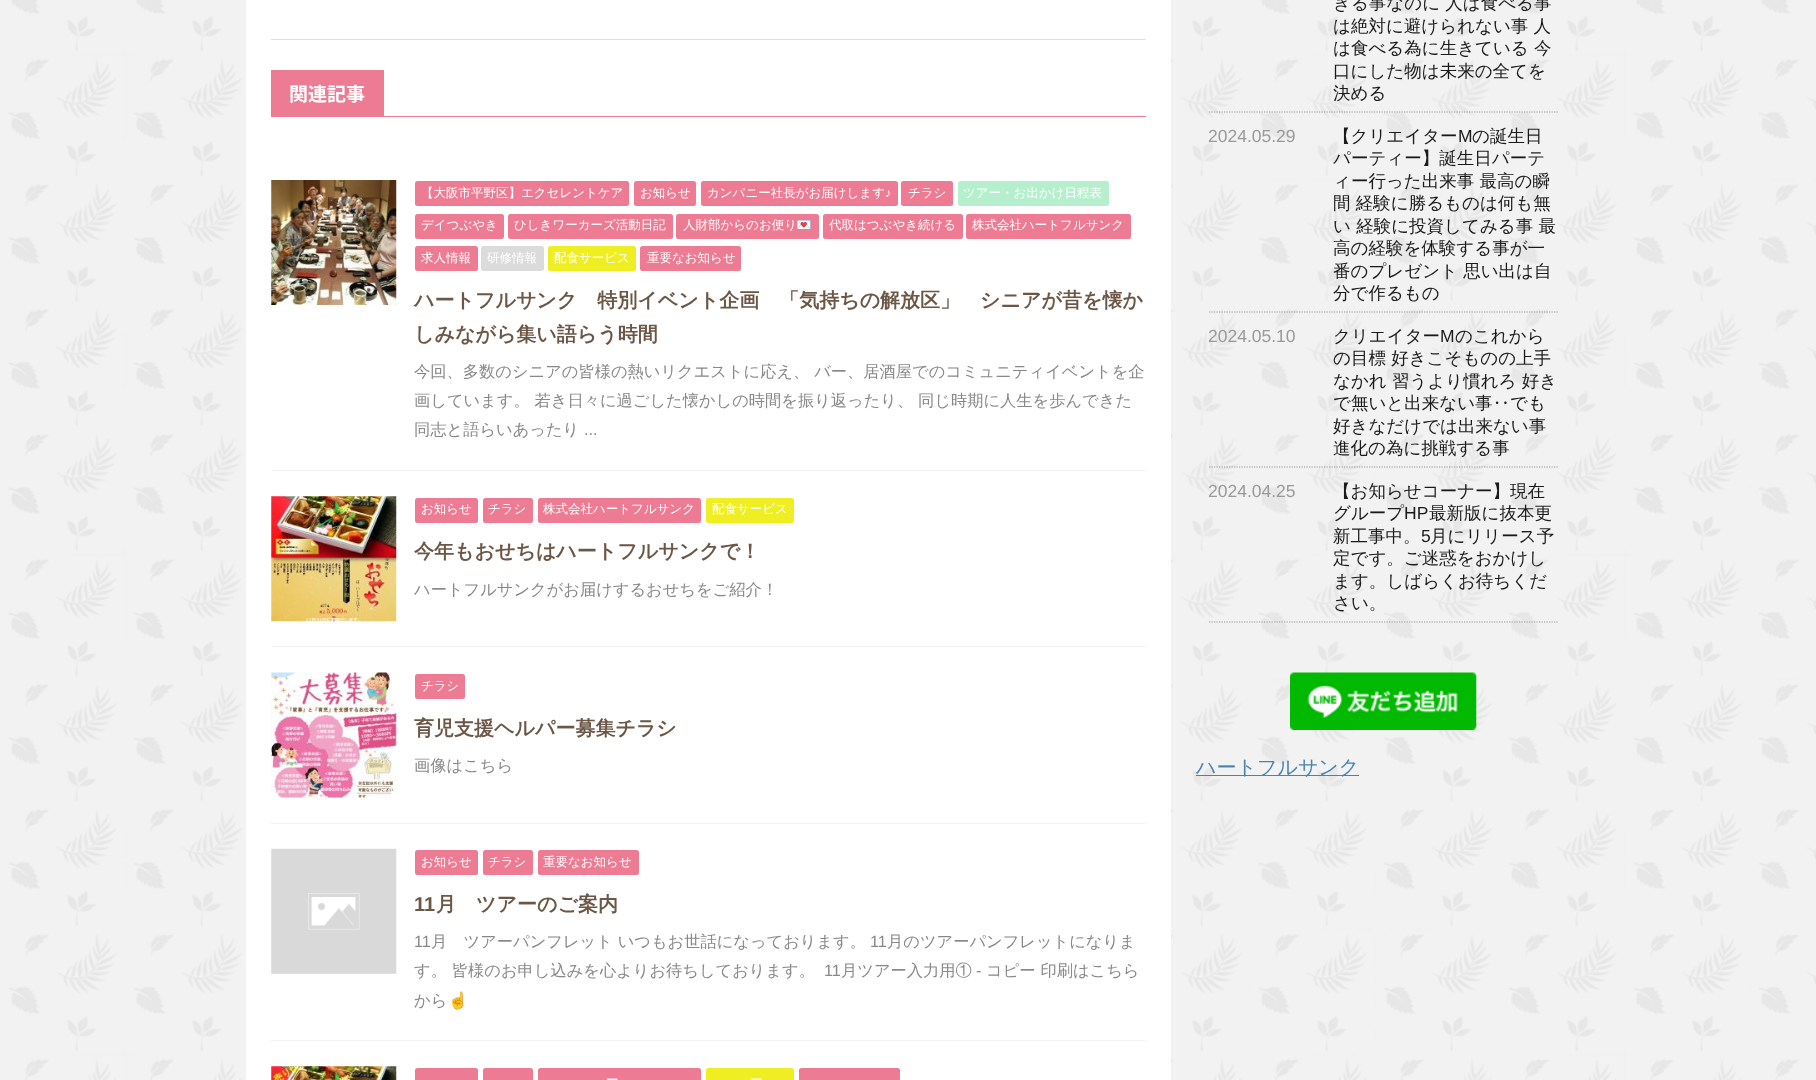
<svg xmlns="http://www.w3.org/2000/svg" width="1816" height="1080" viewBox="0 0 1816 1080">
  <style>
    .t1 { font: bold 19px Noto Sans JP; fill: #fff; }
    .t2 { font: 500 12.5px WenQuanYi Zen Hei; fill: #fff; }
    .t3 { font: 12.5px Liberation Sans; fill: #fff; }
    .t4 { font: 12.5px Noto Color Emoji; fill: #fff; }
    .t5 { font: bold 20px WenQuanYi Zen Hei; fill: #6c5646; }
    .t6 { font: 500 16.25px WenQuanYi Zen Hei; fill: #888; }
    .t7 { font: 16.25px Liberation Sans; fill: #888; }
    .t8 { font: bold 20px Liberation Sans; fill: #6c5646; }
    .t9 { font: 16.25px Noto Color Emoji; fill: #888; }
    .t10 { font: 500 17.5px WenQuanYi Zen Hei; fill: #1a1a1a; }
    .t11 { font: 17.5px Liberation Sans; fill: #999; }
    .t12 { font: 17.5px Liberation Sans; fill: #1a1a1a; }
    .t13 { font: 500 20px WenQuanYi Zen Hei; fill: #4682b4; }
  </style>
  <rect width="100%" height="100%" fill="#fff"/>
  <image x="0" y="0" width="1816" height="1080" href="images/1.png"/>
  <rect x="246" y="0" width="925" height="1080" fill="#fff"/>
  <rect x="271" y="39" width="875" height="1" fill="#e0e0e0"/>
  <rect x="271" y="116" width="875" height="1" fill="#ed7b93"/>
  <rect x="271" y="70" width="113" height="46" fill="#ed7b93"/>
  <text x="289" y="101" class="t1">関連記事</text>
  <rect x="271" y="470" width="875" height="1" fill="#f3f3f3"/>
  <image x="271" y="180" width="126" height="125" href="images/2.png"/>
  <rect x="415" y="181" width="214" height="25" rx="2.5" fill="#ed7b93"/>
  <text x="421" y="197" class="t2">【大阪市平野区】エクセレントケア</text>
  <rect x="634" y="181" width="62" height="25" rx="2.5" fill="#ed7b93"/>
  <text x="640" y="197" class="t2">お知らせ</text>
  <rect x="701" y="181" width="197" height="25" rx="2.5" fill="#ed7b93"/>
  <text x="707" y="197" class="t2">カンパニー社長がお届けします</text>
  <text x="885" y="197" class="t3">♪</text>
  <rect x="901" y="181" width="52" height="25" rx="2.5" fill="#ed7b93"/>
  <text x="908" y="197" class="t2">チラシ</text>
  <rect x="958" y="181" width="151" height="25" rx="2.5" fill="#b6efce"/>
  <text x="963" y="197" class="t2">ツアー・お出かけ日程表</text>
  <rect x="415" y="214" width="89" height="25" rx="2.5" fill="#ed7b93"/>
  <text x="421" y="229" class="t2">デイつぶやき</text>
  <rect x="508" y="214" width="165" height="25" rx="2.5" fill="#ed7b93"/>
  <text x="514" y="229" class="t2">ひしきワーカーズ活動日記</text>
  <rect x="676" y="214" width="143" height="25" rx="2.5" fill="#ed7b93"/>
  <text x="683" y="229" class="t2">人財部からのお便り</text>
  <text x="796" y="229" class="t4">💌</text>
  <rect x="823" y="214" width="140" height="25" rx="2.5" fill="#ed7b93"/>
  <text x="829" y="229" class="t2">代取はつぶやき続ける</text>
  <rect x="966" y="214" width="165" height="25" rx="2.5" fill="#ed7b93"/>
  <text x="972" y="229" class="t2">株式会社ハートフルサンク</text>
  <rect x="415" y="246" width="63" height="25" rx="2.5" fill="#ed7b93"/>
  <text x="421" y="262" class="t2">求人情報</text>
  <rect x="481" y="246" width="63" height="25" rx="2.5" fill="#dbdbdb"/>
  <text x="487" y="262" class="t2">研修情報</text>
  <rect x="548" y="246" width="88" height="25" rx="2.5" fill="#ee2"/>
  <text x="554" y="262" class="t2">配食サービス</text>
  <rect x="640" y="246" width="101" height="25" rx="2.5" fill="#ed7b93"/>
  <text x="647" y="262" class="t2">重要なお知らせ</text>
  <text x="414" y="307" class="t5">ハートフルサンク　特別イベント企画　「気持ちの解放区」　シニアが昔を懐か</text>
  <text x="414" y="341" class="t5">しみながら集い語らう時間</text>
  <text x="414" y="377" class="t6">今回、多数のシニアの皆様の熱いリクエストに応え、 バー、居酒屋でのコミュニティイベントを企</text>
  <text x="414" y="406" class="t6">画しています。 若き日々に過ごした懐かしの時間を振り返ったり、 同じ時期に人生を歩んできた</text>
  <text x="414" y="435" class="t6">同志と語らいあったり</text>
  <text x="584" y="435" class="t7">...</text>
  <rect x="271" y="646" width="875" height="1" fill="#f3f3f3"/>
  <image x="271" y="496" width="126" height="126" href="images/3.png"/>
  <rect x="415" y="498" width="63" height="25" rx="2.5" fill="#ed7b93"/>
  <text x="421" y="513" class="t2">お知らせ</text>
  <rect x="483" y="498" width="50" height="25" rx="2.5" fill="#ed7b93"/>
  <text x="488" y="513" class="t2">チラシ</text>
  <rect x="538" y="498" width="163" height="25" rx="2.5" fill="#ed7b93"/>
  <text x="543" y="513" class="t2">株式会社ハートフルサンク</text>
  <rect x="706" y="498" width="88" height="25" rx="2.5" fill="#ee2"/>
  <text x="712" y="513" class="t2">配食サービス</text>
  <text x="414" y="558" class="t5">今年もおせちはハートフルサンクで！</text>
  <text x="414" y="595" class="t6">ハートフルサンクがお届けするおせちをご紹介！</text>
  <rect x="271" y="823" width="875" height="1" fill="#f3f3f3"/>
  <image x="271" y="672" width="126" height="126" href="images/4.png"/>
  <rect x="415" y="674" width="50" height="25" rx="2.5" fill="#ed7b93"/>
  <text x="421" y="690" class="t2">チラシ</text>
  <text x="414" y="735" class="t5">育児支援ヘルパー募集チラシ</text>
  <text x="414" y="771" class="t6">画像はこちら</text>
  <rect x="271" y="1040" width="875" height="1" fill="#f3f3f3"/>
  <image x="271" y="848" width="126" height="126" href="images/5.png"/>
  <rect x="415" y="850" width="63" height="25" rx="2.5" fill="#ed7b93"/>
  <text x="421" y="866" class="t2">お知らせ</text>
  <rect x="483" y="850" width="50" height="25" rx="2.5" fill="#ed7b93"/>
  <text x="488" y="866" class="t2">チラシ</text>
  <rect x="538" y="850" width="101" height="25" rx="2.5" fill="#ed7b93"/>
  <text x="543" y="866" class="t2">重要なお知らせ</text>
  <text x="414" y="911" class="t8">11</text>
  <text x="436" y="911" class="t5">月　ツアーのご案内</text>
  <text x="414" y="947" class="t7">11</text>
  <text x="431" y="947" class="t6">月　ツアーパンフレット いつもお世話になっております。</text>
  <text x="870" y="947" class="t7">11</text>
  <text x="887" y="947" class="t6">月のツアーパンフレットになりま</text>
  <text x="414" y="976" class="t6">す。 皆様のお申し込みを心よりお待ちしております。</text>
  <text x="824" y="976" class="t7">11</text>
  <text x="841" y="976" class="t6">月ツアー入力用①</text>
  <text x="976" y="976" class="t7">-</text>
  <text x="986" y="976" class="t6">コピー 印刷はこちら</text>
  <text x="414" y="1006" class="t6">から</text>
  <text x="448" y="1006" class="t9">☝</text>
  <image x="271" y="1066" width="126" height="14" href="images/6.png"/>
  <rect x="415" y="1068" width="63" height="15" rx="2.5" fill="#ed7b93"/>
  <rect x="483" y="1068" width="50" height="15" rx="2.5" fill="#ed7b93"/>
  <rect x="538" y="1068" width="163" height="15" rx="2.5" fill="#ed7b93"/>
  <text x="606" y="1084" class="t2">ー</text>
  <rect x="706" y="1068" width="88" height="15" rx="2.5" fill="#ee2"/>
  <text x="750" y="1084" class="t2">ー</text>
  <rect x="799" y="1068" width="101" height="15" rx="2.5" fill="#ed7b93"/>
  <path d="M1209 112H1559" fill="none" stroke="#999" stroke-width="1.2" stroke-dasharray="1.25 1.25"/>
  <text x="1333" y="9" class="t10">きる事なのに 人は食べる事</text>
  <text x="1333" y="32" class="t10">は絶対に避けられない事 人</text>
  <text x="1333" y="54" class="t10">は食べる為に生きている 今</text>
  <text x="1333" y="77" class="t10">口にした物は未来の全てを</text>
  <text x="1333" y="99" class="t10">決める</text>
  <text x="1208" y="142" class="t11">2024.05.29</text>
  <path d="M1209 312H1559" fill="none" stroke="#999" stroke-width="1.2" stroke-dasharray="1.25 1.25"/>
  <text x="1333" y="142" class="t10">【クリエイター</text>
  <text x="1458" y="142" class="t12">M</text>
  <text x="1472" y="142" class="t10">の誕生日</text>
  <text x="1333" y="164" class="t10">パーティー】誕生日パーテ</text>
  <text x="1333" y="187" class="t10">ィー行った出来事 最高の瞬</text>
  <text x="1333" y="209" class="t10">間 経験に勝るものは何も無</text>
  <text x="1333" y="232" class="t10">い 経験に投資してみる事 最</text>
  <text x="1333" y="254" class="t10">高の経験を体験する事が一</text>
  <text x="1333" y="277" class="t10">番のプレゼント 思い出は自</text>
  <text x="1333" y="299" class="t10">分で作るもの</text>
  <text x="1208" y="342" class="t11">2024.05.10</text>
  <path d="M1209 467H1559" fill="none" stroke="#999" stroke-width="1.2" stroke-dasharray="1.25 1.25"/>
  <text x="1333" y="342" class="t10">クリエイター</text>
  <text x="1440" y="342" class="t12">M</text>
  <text x="1455" y="342" class="t10">のこれから</text>
  <text x="1333" y="364" class="t10">の目標 好きこそものの上手</text>
  <text x="1333" y="387" class="t10">なかれ 習うより慣れろ 好き</text>
  <text x="1333" y="409" class="t10">で無いと出来ない事‥でも</text>
  <text x="1333" y="432" class="t10">好きなだけでは出来ない事</text>
  <text x="1333" y="454" class="t10">進化の為に挑戦する事</text>
  <text x="1208" y="497" class="t11">2024.04.25</text>
  <path d="M1209 622H1559" fill="none" stroke="#999" stroke-width="1.2" stroke-dasharray="1.25 1.25"/>
  <text x="1333" y="497" class="t10">【お知らせコーナー】現在</text>
  <text x="1333" y="519" class="t10">グループ</text>
  <text x="1404" y="519" class="t12">HP</text>
  <text x="1429" y="519" class="t10">最新版に抜本更</text>
  <text x="1333" y="542" class="t10">新工事中。</text>
  <text x="1421" y="542" class="t12">5</text>
  <text x="1430" y="542" class="t10">月にリリース予</text>
  <text x="1333" y="564" class="t10">定です。ご迷惑をおかけし</text>
  <text x="1333" y="587" class="t10">ます。しばらくお待ちくだ</text>
  <text x="1333" y="609" class="t10">さい。</text>
  <image x="1290" y="672" width="187" height="58" href="images/7.png"/>
  <rect x="1196" y="775" width="163" height="1" fill="#4682b4"/>
  <text x="1196" y="774" class="t13">ハートフルサンク</text>
</svg>
